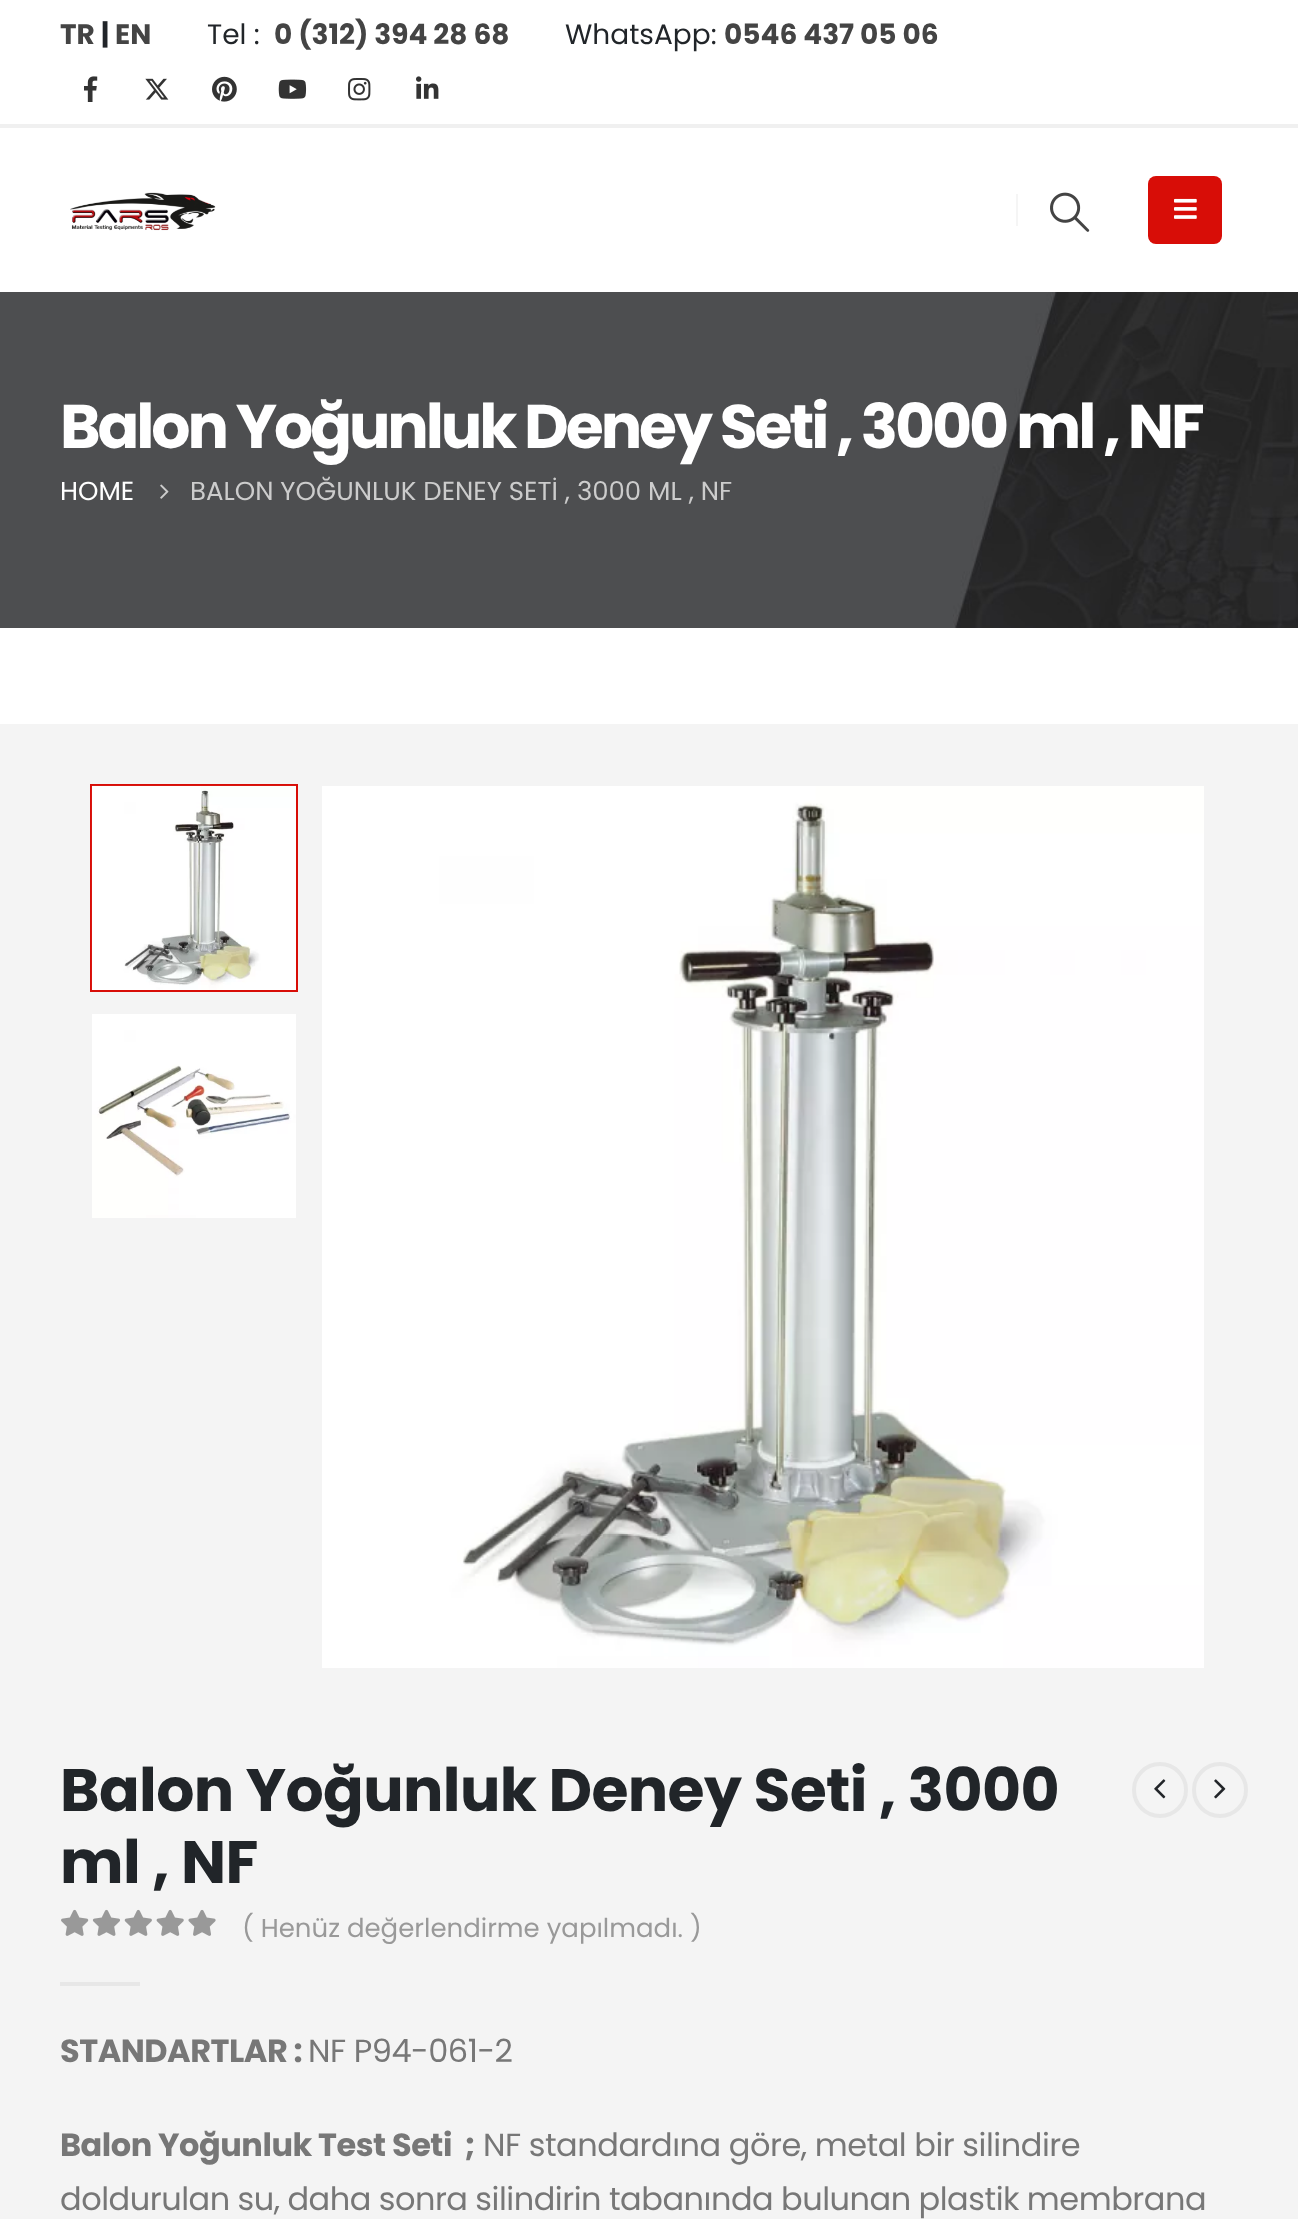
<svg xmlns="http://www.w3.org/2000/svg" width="1298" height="2219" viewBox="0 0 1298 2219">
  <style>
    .t1 { font: bold 28px Poppins; fill: #444; }
    .t2 { font: bold 28px Poppins; fill: #212529; }
    .t3 { font: 28px Poppins; fill: #212529; }
    .t4 { font: bold 61.6px Poppins; letter-spacing: -3.1px; fill: #fff; }
    .t5 { font: 26px Poppins; fill: #fff; }
    .t6 { font: 26px Poppins; fill: #ccc; }
    .t7 { font: bold 60px Poppins; letter-spacing: -0.6px; fill: #212529; }
    .t8 { font: 26px Poppins; fill: #999; }
    .t9 { font: bold 32px Poppins; letter-spacing: -0.48px; fill: #777; }
    .t10 { font: 32px Poppins; letter-spacing: -0.48px; fill: #777; }
  </style>
  <rect width="100%" height="100%" fill="#fff"/>
  <rect x="0" y="124" width="1298" height="4" fill="#f0f0f0"/>
  <text x="60" y="44" class="t1">TR</text>
  <text x="101" y="44" class="t2">|</text>
  <text x="115" y="44" class="t1">EN</text>
  <text x="207" y="44" class="t3">Tel :</text>
  <text x="274" y="44" class="t1">0 (312) 394 28 68</text>
  <text x="565" y="44" class="t3">WhatsApp:</text>
  <text x="724" y="44" class="t1">0546 437 05 06</text>
  <image x="84" y="76" width="14" height="26" href="images/1.png"/>
  <image x="145" y="78" width="24" height="22" href="images/2.png"/>
  <image x="212" y="76" width="25" height="26" href="images/3.png"/>
  <image x="278" y="79" width="29" height="20" href="images/4.png"/>
  <image x="348" y="78" width="23" height="23" href="images/5.png"/>
  <image x="416" y="76" width="23" height="23" href="images/6.png"/>
  <image x="70" y="192" width="146" height="39" href="images/7.png"/>
  <rect x="1016" y="194" width="2" height="32" fill="#f5f5f5"/>
  <image x="1050" y="192" width="40" height="40" href="images/8.png"/>
  <rect x="1148" y="176" width="74" height="68" rx="8" fill="#d80d07"/>
  <image x="1174" y="198" width="23" height="21" href="images/9.png"/>
  <rect x="0" y="292" width="953" height="336" fill="#4d4e50"/>
  <image x="953" y="292" width="345" height="336" href="images/10.png"/>
  <text x="60" y="448" class="t4">Balon Yoğunluk Deney Seti , 3000 ml , NF</text>
  <text x="60" y="500" class="t5">HOME</text>
  <image x="160" y="484" width="9" height="15" href="images/11.png"/>
  <text x="190" y="500" class="t6">BALON YOĞUNLUK DENEY SETİ , 3000 ML , NF</text>
  <rect x="0" y="724" width="1298" height="1495" fill="#f4f4f4"/>
  <rect x="91" y="785" width="206" height="206" fill="none" stroke="#d80d07" stroke-width="2"/>
  <image x="91" y="785" width="205" height="205" href="images/12.png"/>
  <image x="92" y="1014" width="204" height="204" href="images/13.png"/>
  <image x="322" y="786" width="882" height="882" href="images/14.png"/>
  <text x="60" y="1811" class="t7">Balon Yoğunluk Deney Seti , 3000</text>
  <text x="60" y="1883" class="t7">ml , NF</text>
  <circle cx="1160" cy="1790" r="26" fill="none" stroke="#e7e7e7" stroke-width="4"/>
  <image x="1154" y="1779" width="12" height="20" href="images/15.png"/>
  <circle cx="1220" cy="1790" r="26" fill="none" stroke="#e7e7e7" stroke-width="4"/>
  <image x="1214" y="1779" width="12" height="20" href="images/16.png"/>
  <image x="61" y="1909" width="155" height="27" href="images/17.png"/>
  <text x="242" y="1937" class="t8">( Henüz değerlendirme yapılmadı. )</text>
  <rect x="60" y="1982" width="80" height="4" fill="#e7e7e7"/>
  <text x="60" y="2062" class="t9">STANDARTLAR :</text>
  <text x="308" y="2062" class="t10">NF P94-061-2</text>
  <text x="60" y="2156" class="t9" xml:space="preserve">Balon Yoğunluk Test Seti  ;</text>
  <text x="483" y="2156" class="t10">NF standardına göre, metal bir silindire</text>
  <text x="60" y="2210" word-spacing="-0.25" class="t10">doldurulan su, daha sonra silindirin tabanında bulunan plastik membrana</text>
</svg>
